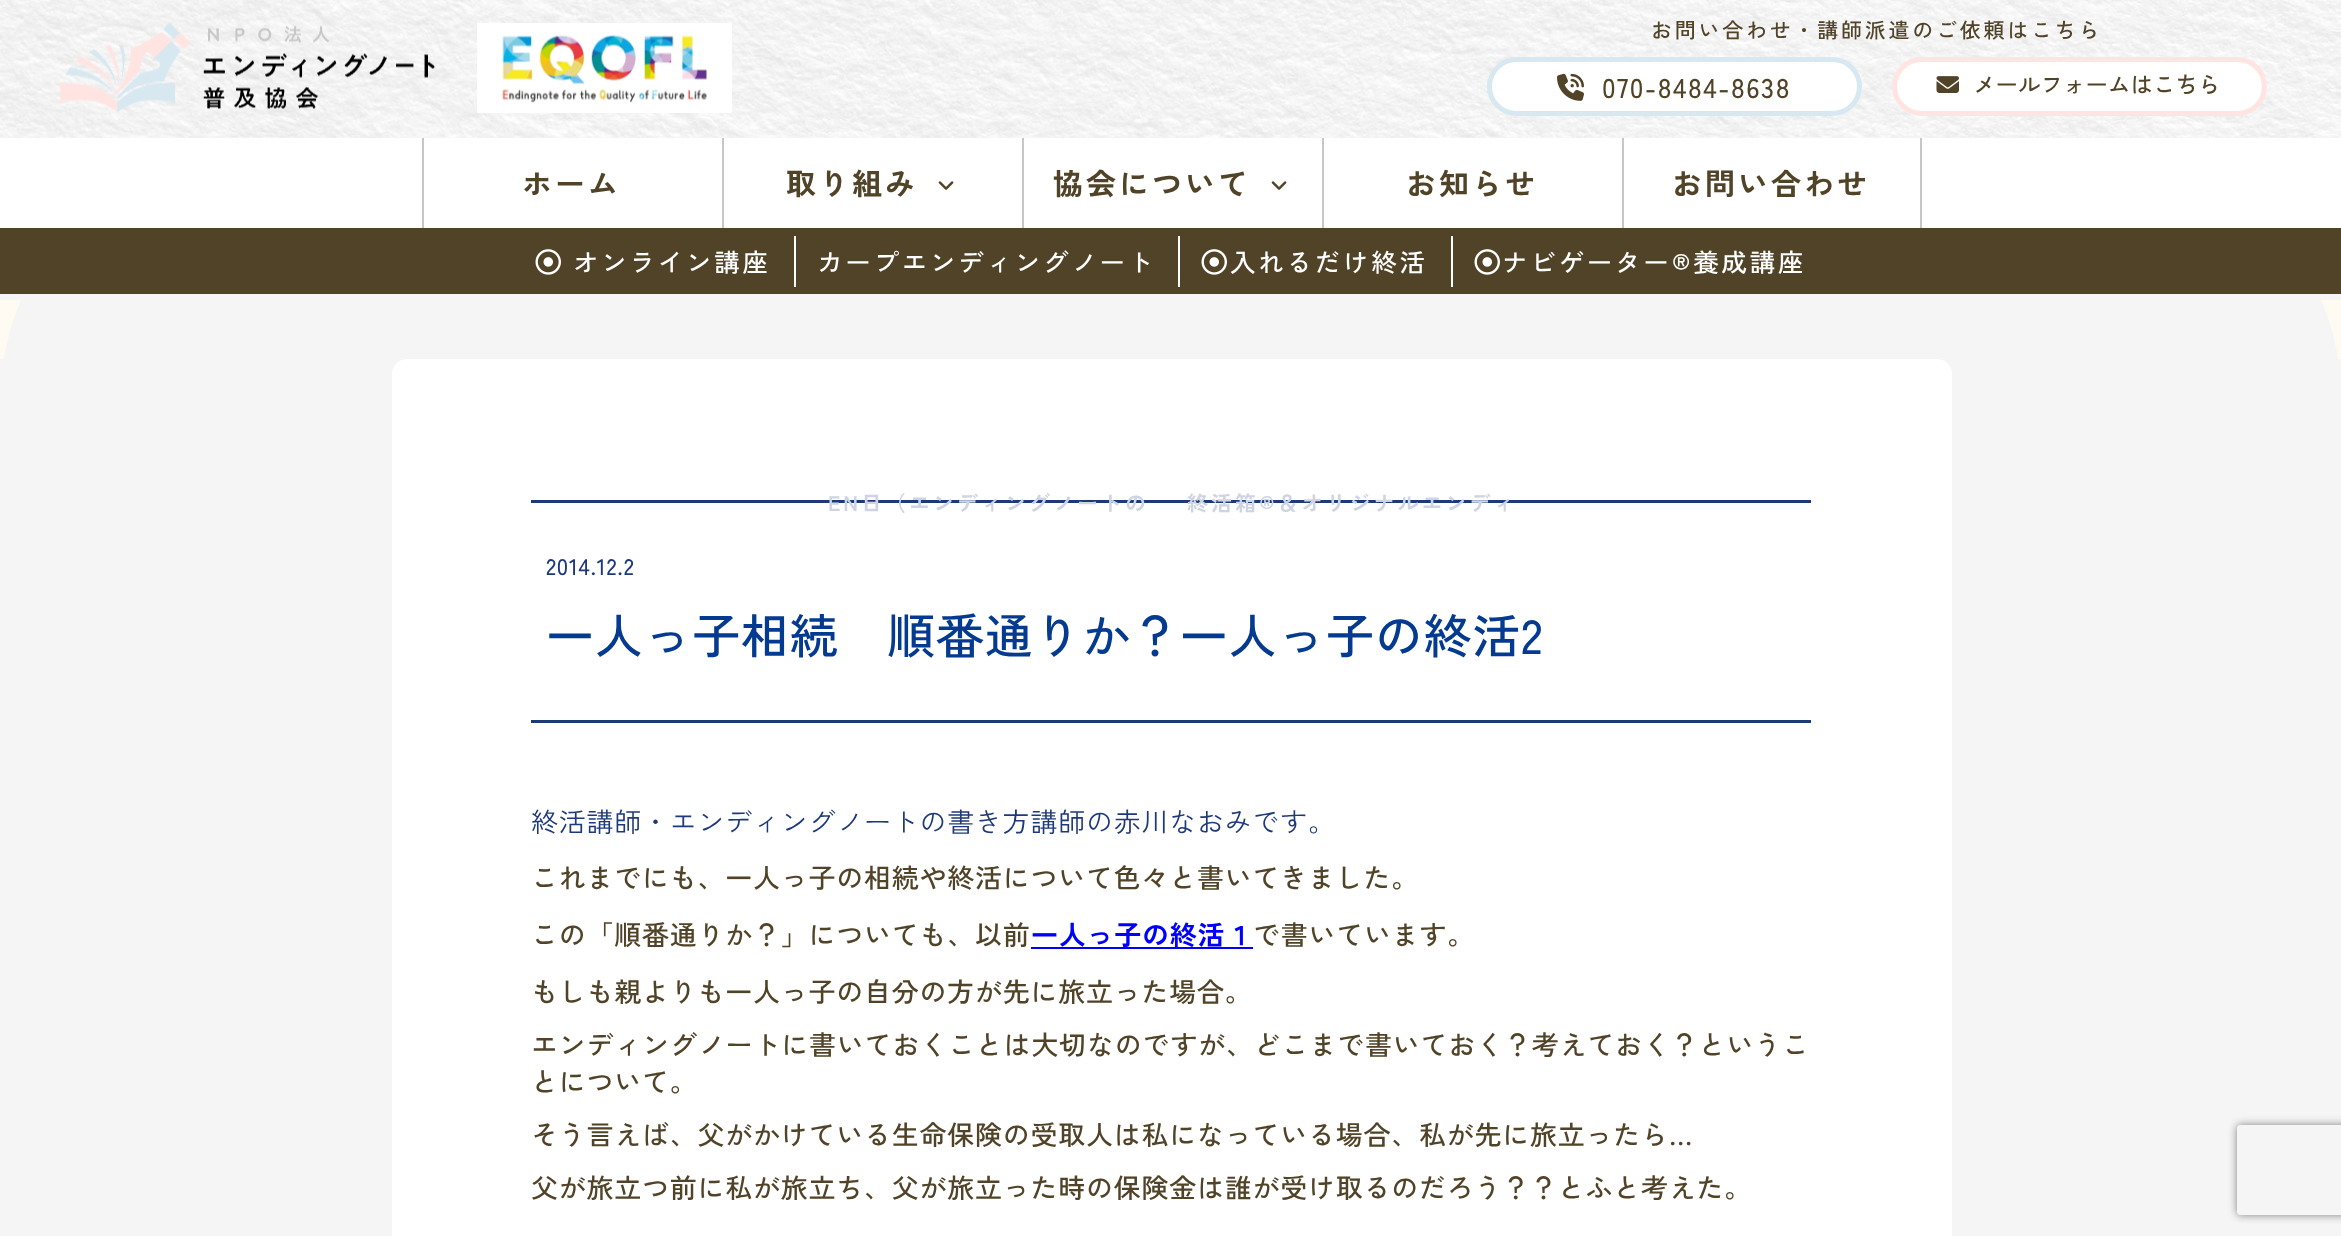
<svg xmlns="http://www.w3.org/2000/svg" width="2341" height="1236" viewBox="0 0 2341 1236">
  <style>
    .t1 { font: 500 21px Zen Kaku Gothic New; letter-spacing: 2.75px; fill: #514327; }
    .t2 { font: 500 27px Zen Kaku Gothic New; letter-spacing: 1.5px; fill: #514327; }
    .t3 { font: 500 22.5px Zen Kaku Gothic New; fill: #514327; }
    .t4 { font: bold 30px Zen Kaku Gothic New; letter-spacing: 3px; fill: #514327; }
    .t5 { font: bold 21px Zen Kaku Gothic New; letter-spacing: 3px; fill: #ced4e2; }
    .t6 { font: 500 25.5px Zen Kaku Gothic New; letter-spacing: 2.75px; fill: #fff; }
    .t7 { font: 500 22.5px Zen Kaku Gothic New; letter-spacing: 0.75px; fill: #1e3979; }
    .t8 { font: 500 48px Zen Kaku Gothic New; letter-spacing: 0.75px; fill: #043b90; }
    .t9 { font: 27px Zen Kaku Gothic New; letter-spacing: 0.75px; fill: #1e3979; }
    .t10 { font: 500 27px Zen Kaku Gothic New; letter-spacing: 0.75px; fill: #514327; }
    .t11 { font: bold 27px Zen Kaku Gothic New; letter-spacing: 0.75px; fill: #00f; }
    .t12 { font: 500 27px Zen Kaku Gothic New; letter-spacing: 0.8px; fill: #514327; }
  </style>
  <defs>
    <clipPath id="clip1"><path d="M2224 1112H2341V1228H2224ZM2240 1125H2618C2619.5 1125 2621 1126.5 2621 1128V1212C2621 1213.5 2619.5 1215 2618 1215H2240C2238.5 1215 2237 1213.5 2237 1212V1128C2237 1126.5 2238.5 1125 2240 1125Z" clip-rule="evenodd"/></clipPath>
  </defs>
  <rect width="100%" height="100%" fill="#f5f5f5"/>
  <rect x="0" y="300" width="2341" height="59" fill="#fffbf2"/>
  <path d="M270 134H2072C2221 134 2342 255 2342 404V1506H0V404C0 255 121 134 270 134Z" fill="#f5f5f5"/>
  <image x="0" y="0" width="2341" height="138" href="images/1.png"/>
  <image x="60" y="23" width="375" height="90" href="images/2.png"/>
  <image x="477" y="23" width="255" height="90" href="images/3.png"/>
  <text x="1651" y="38" class="t1">お問い合わせ・講師派遣のご依頼はこちら</text>
  <rect x="1489.5" y="59.5" width="370" height="54" rx="27" fill="#fff" stroke="#d7e8f1" stroke-width="5"/>
  <image x="1557" y="73" width="27" height="28" href="images/4.png"/>
  <text x="1602" y="98" class="t2">070-8484-8638</text>
  <rect x="1894.5" y="59.5" width="370" height="54" rx="27" fill="#fff" stroke="#ffe4e1" stroke-width="5"/>
  <image x="1936" y="76" width="23" height="17" href="images/5.png"/>
  <text x="1973" y="93" class="t3">メールフォームはこちら</text>
  <rect x="0" y="138" width="2341" height="90" fill="#fff"/>
  <rect x="722" y="138" width="2" height="90" fill="#c7c7c7"/>
  <text x="786" y="195" class="t4">取り組み</text>
  <image x="938" y="181" width="16" height="9" href="images/6.png"/>
  <rect x="392" y="359" width="1560" height="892" rx="15" fill="#fff"/>
  <rect x="531" y="500" width="1280" height="3" fill="#1e3979"/>
  <text x="828" y="511" class="t5">EN日（エンディングノートの</text>
  <text x="1187" y="511" class="t5">終活箱®︎＆オリジナルエンディ</text>
  <rect x="422" y="138" width="2" height="90" fill="#c7c7c7"/>
  <text x="522" y="195" class="t4">ホーム</text>
  <rect x="1022" y="138" width="2" height="90" fill="#c7c7c7"/>
  <text x="1053" y="195" class="t4">協会について</text>
  <image x="1271" y="181" width="16" height="9" href="images/6.png"/>
  <rect x="1322" y="138" width="2" height="90" fill="#c7c7c7"/>
  <text x="1406" y="195" class="t4">お知らせ</text>
  <rect x="1920" y="138" width="2" height="90" fill="#c7c7c7"/>
  <rect x="1622" y="138" width="2" height="90" fill="#c7c7c7"/>
  <text x="1672" y="195" class="t4">お問い合わせ</text>
  <rect x="0" y="228" width="2341" height="66" fill="#514327"/>
  <rect x="794" y="236" width="2" height="51" fill="#fff"/>
  <image x="535" y="249" width="26" height="26" href="images/7.png"/>
  <text x="573" y="272" class="t6">オンライン講座</text>
  <rect x="1178" y="236" width="2" height="51" fill="#fff"/>
  <text x="817" y="272" class="t6">カープエンディングノート</text>
  <rect x="1451" y="236" width="2" height="51" fill="#fff"/>
  <image x="1201" y="249" width="26" height="26" href="images/7.png"/>
  <text x="1230" y="272" class="t6">入れるだけ終活</text>
  <image x="1474" y="249" width="26" height="26" href="images/7.png"/>
  <text x="1502" y="272" class="t6">ナビゲーター®︎養成講座</text>
  <rect x="531" y="720" width="1280" height="3" fill="#1e3979"/>
  <text x="546" y="575" class="t7">2014.12.2</text>
  <text x="546" y="654" class="t8">一人っ子相続　順番通りか？一人っ子の終活2</text>
  <text x="531" y="832" class="t9">終活講師・エンディングノートの書き方講師の赤川なおみです。</text>
  <text x="531" y="888" class="t10">これまでにも、一人っ子の相続や終活について色々と書いてきました。</text>
  <text x="531" y="945" class="t10">この「順番通りか？」についても、以前</text>
  <rect x="1031" y="947" width="222" height="2" fill="#00f"/>
  <text x="1031" y="945" class="t11">一人っ子の終活１</text>
  <text x="1253" y="945" class="t10">で書いています。</text>
  <text x="531" y="1002" class="t10">もしも親よりも一人っ子の自分の方が先に旅立った場合。</text>
  <text x="531" y="1055" class="t12">エンディングノートに書いておくことは大切なのですが、どこまで書いておく？考えておく？というこ</text>
  <text x="531" y="1092" class="t10">とについて。</text>
  <text x="531" y="1145" class="t10">そう言えば、父がかけている生命保険の受取人は私になっている場合、私が先に旅立ったら…</text>
  <text x="531" y="1198" class="t10">父が旅立つ前に私が旅立ち、父が旅立った時の保険金は誰が受け取るのだろう？？とふと考えた。</text>
  <g clip-path="url(#clip1)">
    <rect x="2237" y="1125" width="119" height="90" rx="3" fill="#808080" filter="blur(4px)"/>
  </g>
</svg>
